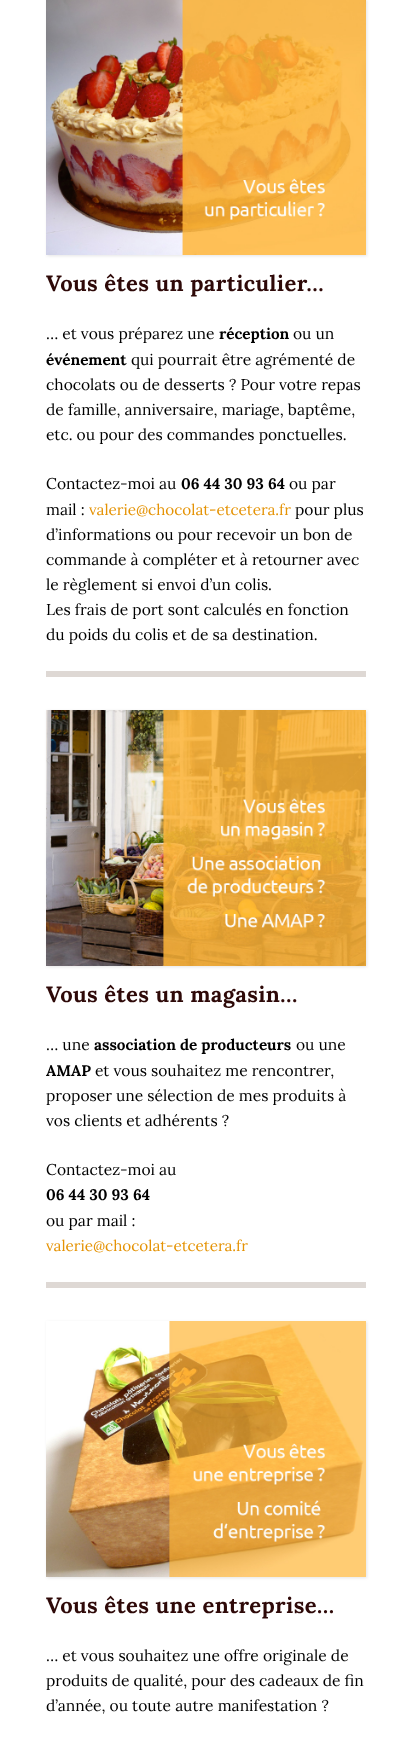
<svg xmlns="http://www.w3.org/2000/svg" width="412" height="1740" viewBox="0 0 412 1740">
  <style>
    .t1 { font: bold 22px Lora; letter-spacing: 0.4px; fill: #2e0908; }
    .t2 { font: 15.6px Lora; fill: #000; }
    .t3 { font: bold 15.25px Lora; fill: #000; }
    .t4 { font: 15.25px Lora; fill: #e59305; }
  </style>
  <rect width="100%" height="100%" fill="#fff"/>
  <rect x="46" y="671" width="320" height="6" fill="#ded8d4"/>
  <rect x="47" y="0" width="320" height="256" fill="#0000001a" filter="blur(1.5px)"/>
  <image x="46" y="0" width="320" height="255" href="images/1.png"/>
  <text x="46" y="291" class="t1">Vous êtes un particulier…</text>
  <text x="46" y="339" class="t2">… et vous préparez une</text>
  <text x="219" y="339" class="t3">réception</text>
  <text x="293" y="339" class="t2">ou un</text>
  <text x="46" y="365" class="t3">événement</text>
  <text x="131" y="365" class="t2">qui pourrait être agrémenté de</text>
  <text x="46" y="390" class="t2">chocolats ou de desserts ? Pour votre repas</text>
  <text x="46" y="415" class="t2">de famille, anniversaire, mariage, baptême,</text>
  <text x="46" y="440" class="t2">etc. ou pour des commandes ponctuelles.</text>
  <text x="46" y="489" class="t2">Contactez-moi au</text>
  <text x="181" y="489" class="t3">06 44 30 93 64</text>
  <text x="289" y="489" class="t2">ou par</text>
  <text x="46" y="515" class="t2">mail :</text>
  <text x="89" y="515" class="t4">valerie@chocolat-etcetera.fr</text>
  <text x="295" y="515" class="t2">pour plus</text>
  <text x="46" y="540" class="t2">d’informations ou pour recevoir un bon de</text>
  <text x="46" y="565" class="t2">commande à compléter et à retourner avec</text>
  <text x="46" y="590" class="t2">le règlement si envoi d’un colis.</text>
  <text x="46" y="615" class="t2">Les frais de port sont calculés en fonction</text>
  <text x="46" y="640" class="t2">du poids du colis et de sa destination.</text>
  <rect x="46" y="1282" width="320" height="6" fill="#ded8d4"/>
  <rect x="47" y="711" width="320" height="256" fill="#0000001a" filter="blur(1.5px)"/>
  <image x="46" y="710" width="320" height="256" href="images/2.png"/>
  <text x="46" y="1002" class="t1">Vous êtes un magasin…</text>
  <text x="46" y="1050" class="t2">… une</text>
  <text x="94" y="1050" class="t3">association de producteurs</text>
  <text x="296" y="1050" class="t2">ou une</text>
  <text x="46" y="1076" class="t3">AMAP</text>
  <text x="95" y="1076" class="t2">et vous souhaitez me rencontrer,</text>
  <text x="46" y="1101" class="t2">proposer une sélection de mes produits à</text>
  <text x="46" y="1126" class="t2">vos clients et adhérents ?</text>
  <text x="46" y="1175" class="t2">Contactez-moi au</text>
  <text x="46" y="1200" class="t3">06 44 30 93 64</text>
  <text x="46" y="1226" class="t2">ou par mail :</text>
  <text x="46" y="1251" class="t4">valerie@chocolat-etcetera.fr</text>
  <rect x="47" y="1322" width="320" height="256" fill="#0000001a" filter="blur(1.5px)"/>
  <image x="46" y="1321" width="320" height="256" href="images/3.png"/>
  <text x="46" y="1613" class="t1">Vous êtes une entreprise…</text>
  <text x="46" y="1661" class="t2">… et vous souhaitez une offre originale de</text>
  <text x="46" y="1686" class="t2">produits de qualité, pour des cadeaux de fin</text>
  <text x="46" y="1711" class="t2">d’année, ou toute autre manifestation ?</text>
</svg>
